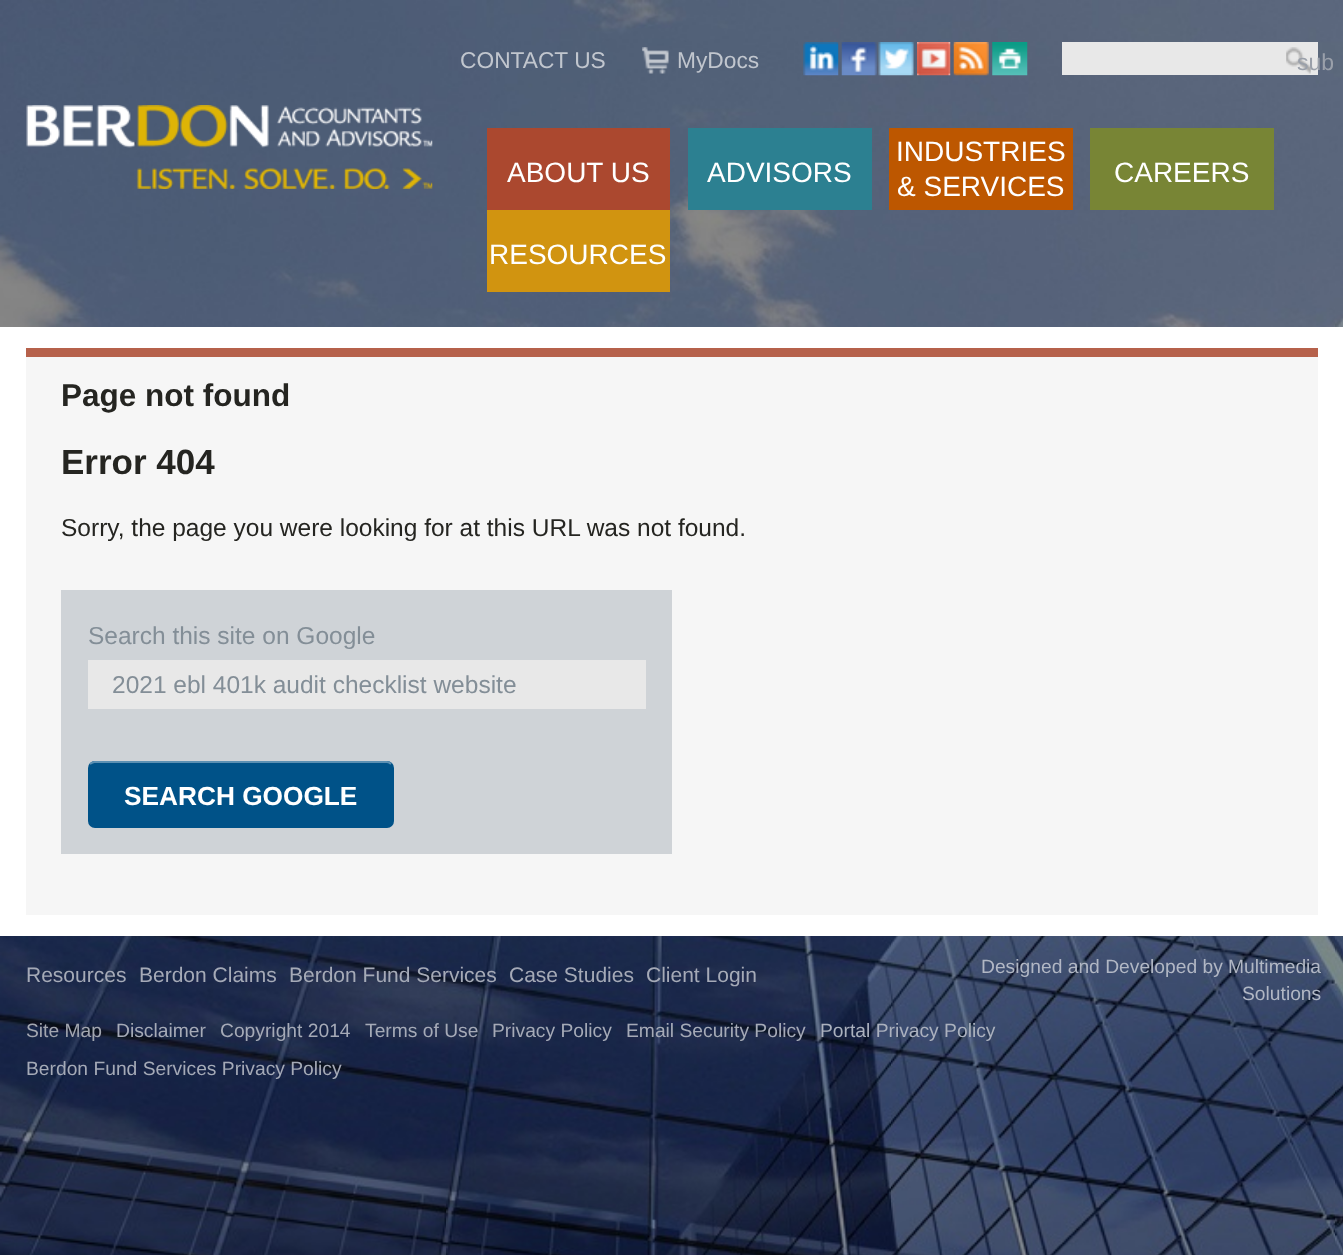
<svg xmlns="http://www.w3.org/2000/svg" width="1343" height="1255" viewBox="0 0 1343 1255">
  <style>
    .t1 { font: 22.75px Liberation Sans; fill: #c1c6ce; }
    .t2 { font: 23px Liberation Sans; fill: #9aa0aa; }
    .t3 { font: 28px Liberation Sans; fill: #fff; }
    .t4 { font: bold 31.5px Liberation Sans; fill: #252521; }
    .t5 { font: bold 35px Liberation Sans; fill: #252521; }
    .t6 { font: 24.5px Liberation Sans; fill: #252521; }
    .t7 { font: 24.5px Liberation Sans; fill: #838e97; }
    .t8 { font: bold 26.25px Liberation Sans; fill: #fff; }
    .t9 { font: 21px Liberation Sans; fill: #a5aab7; }
    .t10 { font: 19.25px Liberation Sans; fill: #b1b7c4; }
    .t11 { font: 19.25px Liberation Sans; fill: #a2a6b0; }
    .t12 { font: 19.25px Liberation Sans; fill: #a5aab7; }
    .t13 { font: 19.25px Liberation Sans; fill: #abb1be; }
  </style>
  <rect width="100%" height="100%" fill="#fff"/>
  <image x="0" y="0" width="1343" height="1255" href="images/1.png"/>
  <text x="460" y="68" class="t1">CONTACT US</text>
  <image x="642" y="47" width="27" height="27" href="images/2.png"/>
  <text x="677" y="68" class="t1">MyDocs</text>
  <image x="803" y="42" width="36" height="34" href="images/3.png"/>
  <image x="841" y="42" width="36" height="34" href="images/4.png"/>
  <image x="878" y="42" width="36" height="34" href="images/5.png"/>
  <image x="917" y="42" width="34" height="34" href="images/6.png"/>
  <image x="953" y="42" width="36" height="34" href="images/7.png"/>
  <image x="992" y="42" width="36" height="34" href="images/8.png"/>
  <rect x="1062" y="42" width="256" height="33" fill="#e8e8e8"/>
  <image x="1286" y="47" width="25" height="27" href="images/9.png"/>
  <text x="1297" y="70" class="t2">sub</text>
  <image x="26" y="105" width="407" height="84" href="images/10.png"/>
  <rect x="487" y="128" width="183" height="82" fill="#ab482f"/>
  <text x="507" y="182" class="t3">ABOUT US</text>
  <rect x="688" y="128" width="184" height="82" fill="#2c8091"/>
  <text x="707" y="182" class="t3">ADVISORS</text>
  <rect x="889" y="128" width="184" height="82" fill="#bd5700"/>
  <text x="896" y="161" class="t3">INDUSTRIES</text>
  <text x="897" y="196" class="t3">&amp; SERVICES</text>
  <rect x="1090" y="128" width="184" height="82" fill="#788535"/>
  <text x="1114" y="182" class="t3">CAREERS</text>
  <rect x="487" y="210" width="183" height="82" fill="#d19410"/>
  <text x="489" y="264" class="t3">RESOURCES</text>
  <rect x="0" y="327" width="1343" height="609" fill="#fff"/>
  <rect x="26" y="357" width="1292" height="558" fill="#f6f6f6"/>
  <rect x="26" y="348" width="1292" height="9" fill="#b6614b"/>
  <text x="61" y="406" class="t4">Page not found</text>
  <text x="61" y="474" class="t5">Error 404</text>
  <text x="61" y="536" class="t6">Sorry, the page you were looking for at this URL was not found.</text>
  <rect x="61" y="590" width="611" height="264" fill="#cfd3d7"/>
  <text x="88" y="644" class="t7">Search this site on Google</text>
  <rect x="88" y="660" width="558" height="49" fill="#e8e8e8"/>
  <text x="112" y="693" class="t7">2021 ebl 401k audit checklist website</text>
  <rect x="88" y="761" width="306" height="67" rx="7" fill="#005288"/>
  <path d="M90 764C91.5 763 93 762 94.5 762H387C388.5 762 390 763 391 764" fill="none" stroke="#5c90b3" stroke-width="1.8"/>
  <text x="124" y="805" class="t8">SEARCH GOOGLE</text>
  <text x="26" y="982" class="t9">Resources</text>
  <text x="139" y="982" class="t9">Berdon Claims</text>
  <text x="289" y="982" class="t9">Berdon Fund Services</text>
  <text x="509" y="982" class="t9">Case Studies</text>
  <text x="646" y="982" class="t9">Client Login</text>
  <text x="981" y="973" class="t10">Designed and Developed by</text>
  <text x="1228" y="973" class="t10">Multimedia</text>
  <text x="1242" y="1000" class="t10">Solutions</text>
  <text x="26" y="1037" class="t11">Site Map</text>
  <text x="116" y="1037" class="t12">Disclaimer</text>
  <text x="220" y="1037" class="t12">Copyright 2014</text>
  <text x="365" y="1037" class="t12">Terms of Use</text>
  <text x="492" y="1037" class="t12">Privacy Policy</text>
  <text x="626" y="1037" class="t12">Email Security Policy</text>
  <text x="820" y="1037" class="t13">Portal Privacy Policy</text>
  <text x="26" y="1075" class="t12">Berdon Fund Services Privacy Policy</text>
</svg>
